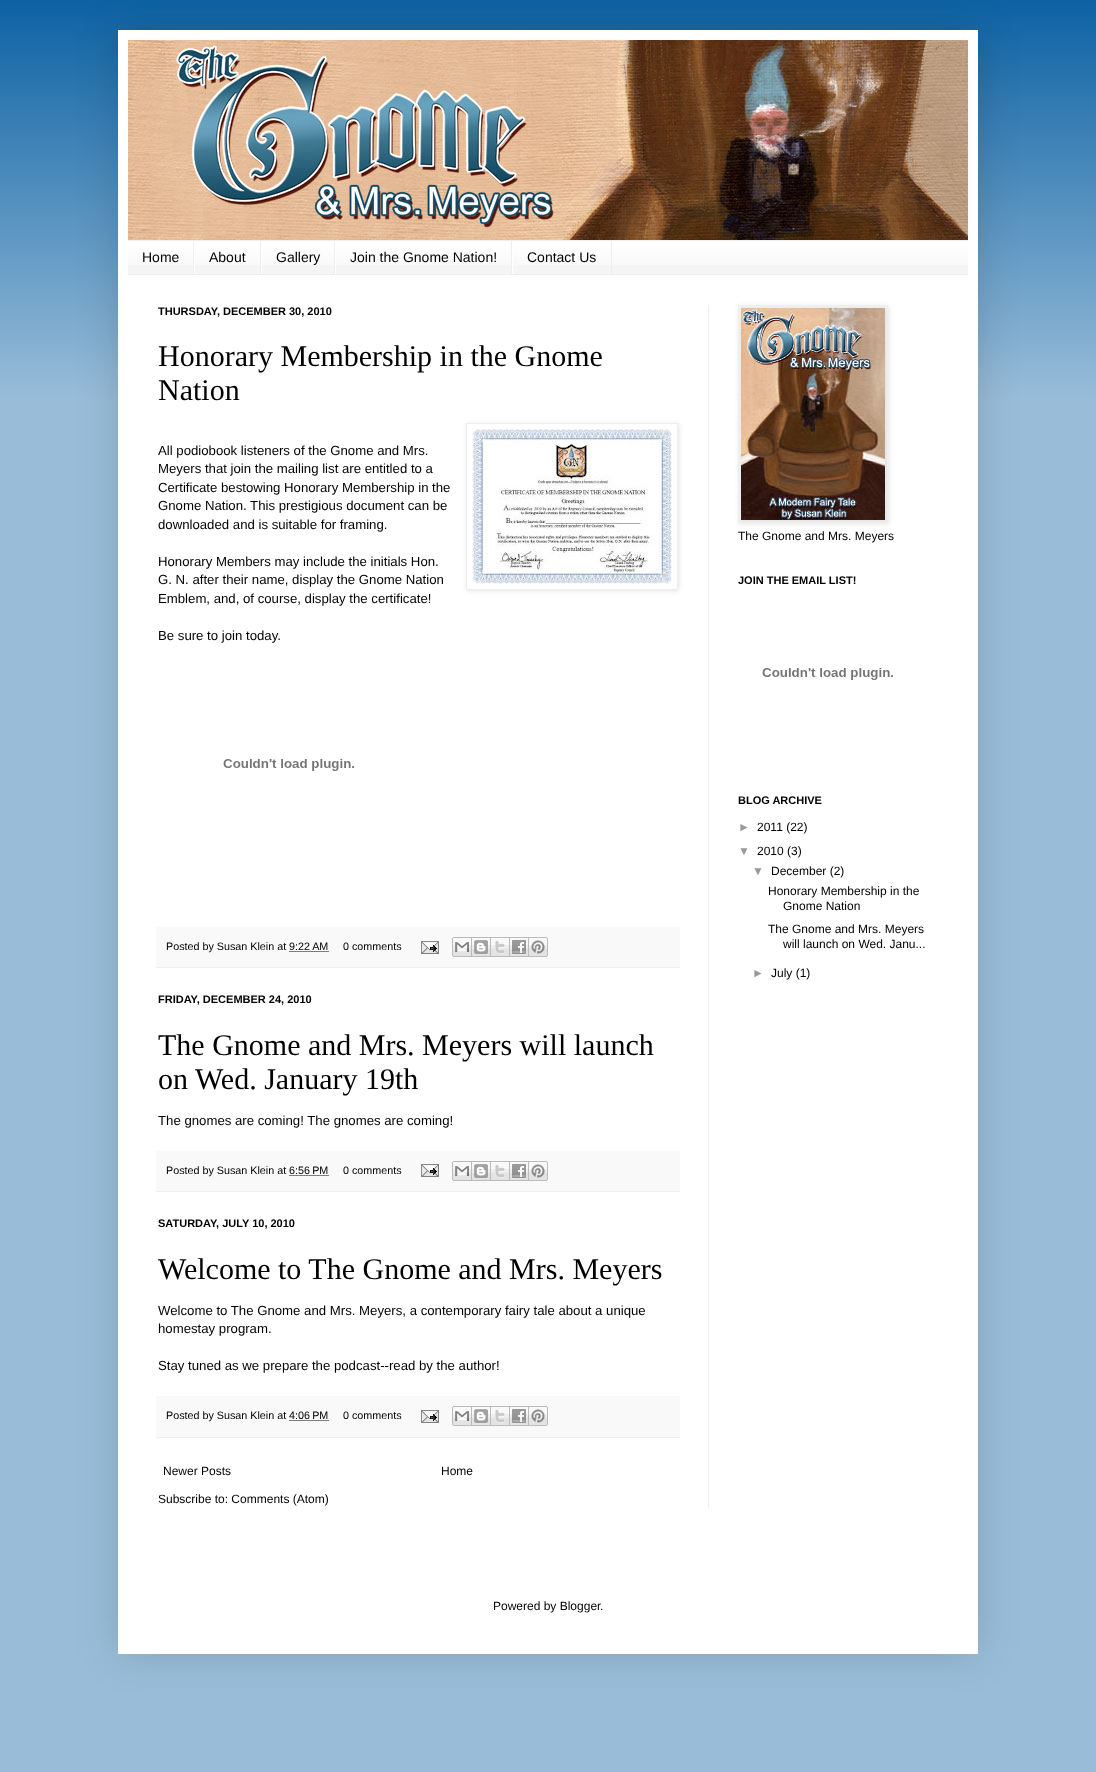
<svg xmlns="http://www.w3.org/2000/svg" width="1096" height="1772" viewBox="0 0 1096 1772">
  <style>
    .t1 { font: 14px Liberation Sans; fill: #000; }
    .t2 { font: bold 11px Liberation Sans; fill: #000; }
    .t3 { font: 30px Liberation Serif; fill: #000; }
    .t4 { font: 13.2px Liberation Sans; fill: #000; }
    .t5 { font: 10.75px Liberation Sans; fill: #000; }
    .t6 { font: 12px Liberation Sans; fill: #000; }
    .t7 { font: 12px Liberation Sans; fill: #999; }
  </style>
  <defs>
    <clipPath id="clip1"><path d="M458 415H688V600H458ZM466 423H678V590H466Z" clip-rule="evenodd"/></clipPath>
  </defs>
  <rect width="100%" height="100%" fill="#99bdd9"/>
  <rect x="0" y="0" width="1096" height="400" fill="#005a9f"/>
  <image x="0" y="0" width="1096" height="400" href="images/1.png"/>
  <rect x="118" y="30" width="860" height="1624" fill="#00000026" filter="blur(20px)"/>
  <rect x="118" y="30" width="860" height="1624" fill="#fff"/>
  <image x="128" y="40" width="840" height="200" href="images/2.png"/>
  <rect x="128" y="242" width="840" height="32" fill="#f5f5f5"/>
  <image x="128" y="241" width="840" height="24" href="images/3.png"/>
  <rect x="128" y="240" width="840" height="1" fill="#eee"/>
  <rect x="128" y="274" width="840" height="1" fill="#eee"/>
  <rect x="193" y="241" width="1" height="33" fill="#eee"/>
  <text x="142" y="262" class="t1">Home</text>
  <rect x="260" y="241" width="1" height="33" fill="#eee"/>
  <rect x="194" y="252" width="1" height="22" fill="#fff"/>
  <text x="209" y="262" class="t1">About</text>
  <rect x="334" y="241" width="1" height="33" fill="#eee"/>
  <rect x="261" y="252" width="1" height="22" fill="#fff"/>
  <text x="276" y="262" class="t1">Gallery</text>
  <rect x="511" y="241" width="1" height="33" fill="#eee"/>
  <rect x="335" y="252" width="1" height="22" fill="#fff"/>
  <text x="350" y="262" class="t1">Join the Gnome Nation!</text>
  <rect x="611" y="241" width="1" height="33" fill="#eee"/>
  <rect x="512" y="252" width="1" height="22" fill="#fff"/>
  <text x="527" y="262" class="t1">Contact Us</text>
  <rect x="708" y="305" width="1" height="1203" fill="#eee"/>
  <text x="158" y="315" class="t2">THURSDAY, DECEMBER 30, 2010</text>
  <text x="158" y="366" class="t3">Honorary Membership in the Gnome</text>
  <text x="158" y="400" class="t3">Nation</text>
  <text x="158" y="455" class="t4">All podiobook listeners of the Gnome and Mrs.</text>
  <g clip-path="url(#clip1)">
    <rect x="467" y="424" width="212" height="167" fill="#0000001a" filter="blur(2.5px)"/>
  </g>
  <rect x="466.5" y="423.5" width="211" height="166" fill="none" stroke="#eee"/>
  <image x="472" y="429" width="200" height="155" href="images/4.png"/>
  <text x="158" y="473" class="t4">Meyers that join the mailing list are entitled to a</text>
  <text x="158" y="492" class="t4">Certificate bestowing Honorary Membership in the</text>
  <text x="158" y="510" class="t4">Gnome Nation. This prestigious document can be</text>
  <text x="158" y="529" class="t4">downloaded and is suitable for framing.</text>
  <text x="158" y="566" class="t4">Honorary Members may include the initials Hon.</text>
  <text x="158" y="584" class="t4">G. N. after their name, display the Gnome Nation</text>
  <text x="158" y="603" class="t4">Emblem, and, of course, display the certificate!</text>
  <text x="158" y="640" class="t4">Be sure to join today.</text>
  <image x="223" y="759" width="131" height="12" href="images/5.png"/>
  <rect x="156" y="927" width="524" height="40" fill="#f9f9f9"/>
  <rect x="156" y="967" width="524" height="1" fill="#eee"/>
  <text x="166" y="950" class="t5">Posted by Susan Klein at 9:22 AM</text>
  <text x="343" y="950" class="t5">0 comments</text>
  <image x="421" y="941" width="18" height="13" href="images/6.png"/>
  <image x="452" y="937" width="20" height="20" href="images/7.png"/>
  <image x="472" y="937" width="19" height="20" href="images/8.png"/>
  <image x="491" y="937" width="19" height="20" href="images/9.png"/>
  <image x="510" y="937" width="19" height="20" href="images/10.png"/>
  <image x="529" y="937" width="19" height="20" href="images/11.png"/>
  <path d="M289.5 951.5H329" fill="none" stroke="#000" stroke-dasharray="1 1"/>
  <text x="158" y="1003" class="t2">FRIDAY, DECEMBER 24, 2010</text>
  <text x="158" y="1055" class="t3">The Gnome and Mrs. Meyers will launch</text>
  <text x="158" y="1089" class="t3">on Wed. January 19th</text>
  <text x="158" y="1125" class="t4">The gnomes are coming! The gnomes are coming!</text>
  <rect x="156" y="1151" width="524" height="40" fill="#f9f9f9"/>
  <rect x="156" y="1191" width="524" height="1" fill="#eee"/>
  <text x="166" y="1174" class="t5">Posted by Susan Klein at 6:56 PM</text>
  <text x="343" y="1174" class="t5">0 comments</text>
  <image x="421" y="1164" width="18" height="13" href="images/6.png"/>
  <image x="452" y="1161" width="20" height="20" href="images/7.png"/>
  <image x="472" y="1161" width="19" height="20" href="images/8.png"/>
  <image x="491" y="1161" width="19" height="20" href="images/9.png"/>
  <image x="510" y="1161" width="19" height="20" href="images/10.png"/>
  <image x="529" y="1161" width="19" height="20" href="images/11.png"/>
  <path d="M289.5 1175.5H329" fill="none" stroke="#000" stroke-dasharray="1 1"/>
  <text x="158" y="1227" class="t2">SATURDAY, JULY 10, 2010</text>
  <text x="158" y="1279" class="t3">Welcome to The Gnome and Mrs. Meyers</text>
  <text x="158" y="1315" class="t4">Welcome to The Gnome and Mrs. Meyers, a contemporary fairy tale about a unique</text>
  <text x="158" y="1333" class="t4">homestay program.</text>
  <text x="158" y="1370" class="t4">Stay tuned as we prepare the podcast--read by the author!</text>
  <rect x="156" y="1396" width="524" height="41" fill="#f9f9f9"/>
  <rect x="156" y="1437" width="524" height="1" fill="#eee"/>
  <text x="166" y="1419" class="t5">Posted by Susan Klein at 4:06 PM</text>
  <text x="343" y="1419" class="t5">0 comments</text>
  <image x="421" y="1410" width="18" height="13" href="images/6.png"/>
  <image x="452" y="1406" width="20" height="20" href="images/7.png"/>
  <image x="472" y="1406" width="19" height="20" href="images/8.png"/>
  <image x="491" y="1406" width="19" height="20" href="images/9.png"/>
  <image x="510" y="1406" width="19" height="20" href="images/10.png"/>
  <image x="529" y="1406" width="19" height="20" href="images/11.png"/>
  <path d="M289.5 1420.5H329" fill="none" stroke="#000" stroke-dasharray="1 1"/>
  <text x="163" y="1475" class="t6">Newer Posts</text>
  <text x="441" y="1475" class="t6">Home</text>
  <text x="158" y="1503" class="t6">Subscribe to: Comments (Atom)</text>
  <rect x="739" y="306" width="150" height="218" fill="#0000001a" filter="blur(2.5px)"/>
  <rect x="738.5" y="305.5" width="149" height="217" fill="none" stroke="#eee"/>
  <image x="741" y="308" width="144" height="212" href="images/12.png"/>
  <text x="738" y="540" class="t6">The Gnome and Mrs. Meyers</text>
  <text x="738" y="584" class="t2">JOIN THE EMAIL LIST!</text>
  <image x="762" y="668" width="131" height="12" href="images/5.png"/>
  <text x="738" y="804" class="t2">BLOG ARCHIVE</text>
  <text x="738" y="831" class="t7">►</text>
  <text x="757" y="831" class="t6">2011 (22)</text>
  <text x="738" y="855" class="t7">▼</text>
  <text x="757" y="855" class="t6">2010 (3)</text>
  <text x="752" y="875" class="t7">▼</text>
  <text x="771" y="875" class="t6">December (2)</text>
  <text x="768" y="895" class="t6">Honorary Membership in the</text>
  <text x="783" y="910" class="t6">Gnome Nation</text>
  <text x="768" y="933" class="t6">The Gnome and Mrs. Meyers</text>
  <text x="783" y="948" class="t6">will launch on Wed. Janu...</text>
  <text x="752" y="977" class="t7">►</text>
  <text x="771" y="977" class="t6">July (1)</text>
  <text x="493" y="1610" class="t6">Powered by Blogger</text>
  <text x="600" y="1610" class="t6">.</text>
</svg>
